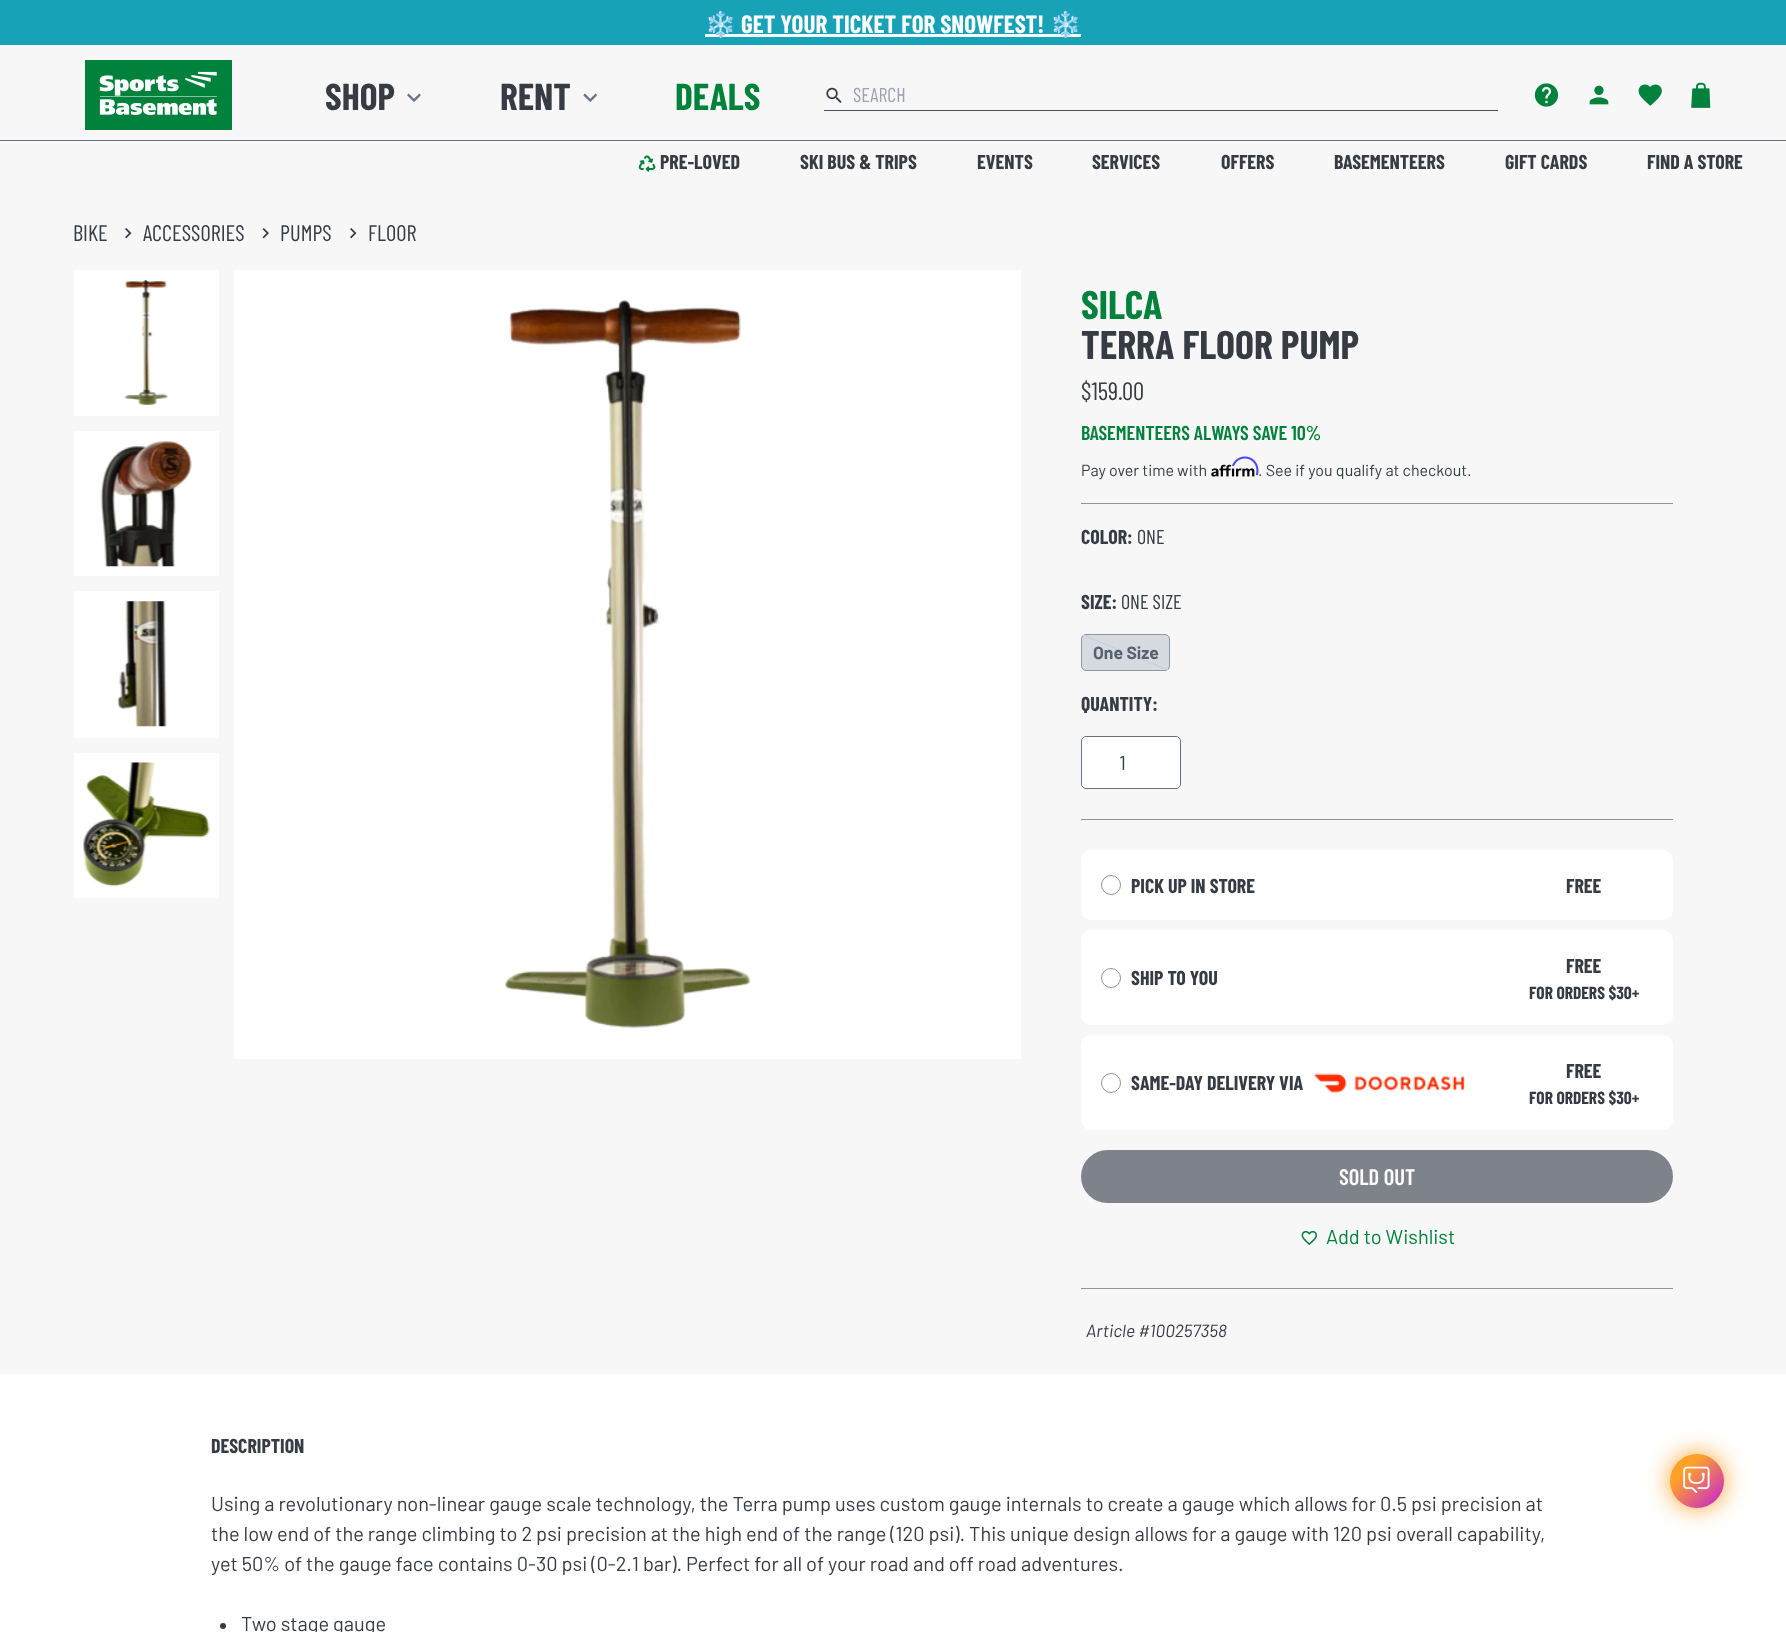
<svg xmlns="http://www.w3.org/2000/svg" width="1786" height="1632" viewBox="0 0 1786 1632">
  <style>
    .t1 { font: bold 25px Noto Color Emoji; fill: #fcfcfc; }
    .t2 { font: bold 25px Barlow Condensed; fill: #fcfcfc; }
    .t3 { font: bold 37.5px Barlow Condensed; fill: #363b44; }
    .t4 { font: bold 37.5px Barlow Condensed; fill: #00823d; }
    .t5 { font: 20px Barlow Condensed; fill: #9ca3af; }
    .t6 { font: bold 20px Barlow Condensed; fill: #363b44; }
    .t7 { font: 22.5px Barlow Condensed; fill: #363b44; }
    .t8 { font: bold 40px Barlow Condensed; fill: #00823d; }
    .t9 { font: bold 40px Barlow Condensed; fill: #363b44; }
    .t10 { font: 25px Barlow Condensed; fill: #363b44; }
    .t11 { font: 600 20px Barlow Condensed; fill: #00823d; }
    .t12 { font: 16px Barlow; fill: #363b44; }
    .t13 { font: 20px Barlow Condensed; fill: #363b44; }
    .t14 { font: bold 17.5px Barlow; fill: #576172; }
    .t15 { font: 20px Barlow; fill: #363b44; }
    .t16 { font: bold 17.5px Barlow Condensed; fill: #363b44; }
    .t17 { font: 600 22.5px Barlow Condensed; fill: #fcfcfc; }
    .t18 { font: 20px Barlow; fill: #00823d; }
    .t19 { font: italic 17.5px Barlow; fill: #363b44; }
  </style>
  <defs>
    <linearGradient id="g1" gradientUnits="userSpaceOnUse" x1="1113" y1="683" x2="1138" y2="622"><stop offset="0" stop-color="#cacfd8" stop-opacity="0"/><stop offset="0.48" stop-color="#cacfd8" stop-opacity="0"/><stop offset="0.5" stop-color="#cacfd8"/><stop offset="0.52" stop-color="#cacfd8" stop-opacity="0"/><stop offset="1" stop-color="#cacfd8" stop-opacity="0"/></linearGradient>
    <linearGradient id="g2" gradientUnits="userSpaceOnUse" x1="1670" y1="1454" x2="1724" y2="1508"><stop offset="0.3" stop-color="#ffa028"/><stop offset="1" stop-color="#c21ddf"/></linearGradient>
  </defs>
  <rect width="100%" height="100%" fill="#f7f7f7"/>
  <rect x="0" y="0" width="1786" height="45" fill="#17a2b8"/>
  <rect x="705" y="34" width="376" height="3" fill="#f7f7f7"/>
  <text x="705" y="33" class="t1">❄️</text>
  <text x="741" y="33" class="t2">GET YOUR TICKET FOR SNOWFEST!</text>
  <text x="1050" y="33" class="t1">❄️</text>
  <image x="85" y="60" width="147" height="70" href="images/1.png"/>
  <text x="325" y="110" class="t3">SHOP</text>
  <image x="407" y="93" width="14" height="9" href="images/2.png"/>
  <text x="500" y="110" class="t3">RENT</text>
  <image x="583" y="93" width="15" height="9" href="images/3.png"/>
  <text x="675" y="110" class="t4">DEALS</text>
  <image x="826" y="87" width="16" height="16" href="images/4.png"/>
  <rect x="824" y="110" width="674" height="1" fill="#474e5d"/>
  <text x="853" y="102" class="t5">SEARCH</text>
  <image x="1534" y="83" width="25" height="24" href="images/5.png"/>
  <image x="1589" y="85" width="20" height="20" href="images/6.png"/>
  <image x="1638" y="84" width="24" height="22" href="images/7.png"/>
  <image x="1691" y="82" width="20" height="26" href="images/8.png"/>
  <rect x="0" y="140" width="1786" height="1" fill="#677284"/>
  <image x="638" y="155" width="18" height="17" href="images/9.png"/>
  <text x="660" y="169" class="t6">PRE-LOVED</text>
  <text x="800" y="169" class="t6">SKI BUS &amp; TRIPS</text>
  <text x="977" y="169" class="t6">EVENTS</text>
  <text x="1092" y="169" class="t6">SERVICES</text>
  <text x="1221" y="169" class="t6">OFFERS</text>
  <text x="1334" y="169" class="t6">BASEMENTEERS</text>
  <text x="1505" y="169" class="t6">GIFT CARDS</text>
  <text x="1647" y="169" class="t6">FIND A STORE</text>
  <text x="73" y="241" class="t7">BIKE</text>
  <image x="125" y="228" width="7" height="11" href="images/10.png"/>
  <text x="143" y="241" class="t7">ACCESSORIES</text>
  <image x="262" y="228" width="7" height="11" href="images/11.png"/>
  <text x="280" y="241" class="t7">PUMPS</text>
  <image x="350" y="228" width="7" height="11" href="images/10.png"/>
  <text x="368" y="241" class="t7">FLOOR</text>
  <rect x="74" y="270" width="145" height="146" fill="#fff"/>
  <image x="124" y="280" width="45" height="125" href="images/12.png"/>
  <rect x="74" y="431" width="145" height="145" fill="#fff"/>
  <image x="100" y="441" width="92" height="126" href="images/13.png"/>
  <rect x="74" y="591" width="145" height="147" fill="#fff"/>
  <image x="117" y="601" width="50" height="126" href="images/14.png"/>
  <rect x="74" y="753" width="145" height="145" fill="#fff"/>
  <image x="83" y="762" width="127" height="125" href="images/15.png"/>
  <rect x="234" y="270" width="787" height="789" fill="#fff"/>
  <image x="504" y="300" width="247" height="729" href="images/16.png"/>
  <text x="1081" y="319" class="t8">SILCA</text>
  <text x="1081" y="359" class="t9">TERRA FLOOR PUMP</text>
  <text x="1081" y="400" class="t10">$159.00</text>
  <text x="1081" y="440" class="t11">BASEMENTEERS ALWAYS SAVE 10%</text>
  <text x="1081" y="476" class="t12">Pay over time with</text>
  <image x="1211" y="464" width="44" height="13" href="images/18.png"/>
  <image x="1232" y="456" width="27" height="20" href="images/17.png"/>
  <text x="1258" y="476" class="t12">. See if you qualify at checkout.</text>
  <rect x="1081" y="503" width="592" height="1" fill="#8b95a5"/>
  <text x="1081" y="544" class="t6">COLOR:</text>
  <text x="1137" y="544" class="t13">ONE</text>
  <text x="1081" y="609" class="t6">SIZE:</text>
  <text x="1121" y="609" class="t13">ONE SIZE</text>
  <rect x="1081.5" y="634.5" width="88" height="36" rx="4.5" fill="#d7dae0" stroke="#8b95a5"/>
  <rect x="1083" y="635" width="86" height="35" fill="url(#g1)"/>
  <text x="1093" y="659" class="t14">One Size</text>
  <text x="1081" y="711" class="t6">QUANTITY:</text>
  <rect x="1081.5" y="736.5" width="99" height="52" rx="4.5" fill="#fff" stroke="#677284"/>
  <text x="1119" y="770" class="t15">1</text>
  <rect x="1081" y="819" width="592" height="1" fill="#8b95a5"/>
  <rect x="1081" y="850" width="592" height="70" rx="10" fill="#fff"/>
  <circle cx="1111" cy="885" r="9.5" fill="none" stroke="#8b95a5"/>
  <text x="1131" y="893" class="t6">PICK UP IN STORE</text>
  <text x="1566" y="893" class="t6">FREE</text>
  <rect x="1081" y="930" width="592" height="95" rx="10" fill="#fff"/>
  <circle cx="1111" cy="978" r="9.5" fill="none" stroke="#8b95a5"/>
  <text x="1131" y="985" class="t6">SHIP TO YOU</text>
  <text x="1566" y="973" class="t6">FREE</text>
  <text x="1529" y="999" class="t16">FOR ORDERS $30+</text>
  <rect x="1081" y="1035" width="592" height="95" rx="10" fill="#fff"/>
  <circle cx="1111" cy="1083" r="9.5" fill="none" stroke="#8b95a5"/>
  <text x="1131" y="1090" class="t6">SAME-DAY DELIVERY VIA</text>
  <image x="1314" y="1073" width="151" height="20" href="images/19.png"/>
  <text x="1566" y="1078" class="t6">FREE</text>
  <text x="1529" y="1104" class="t16">FOR ORDERS $30+</text>
  <rect x="1081" y="1150" width="592" height="53" rx="26.5" fill="#7e828a"/>
  <text x="1339" y="1185" class="t17">SOLD OUT</text>
  <image x="1301" y="1230" width="16" height="16" href="images/20.png"/>
  <text x="1326" y="1244" class="t18">Add to Wishlist</text>
  <rect x="1081" y="1288" width="592" height="1" fill="#8b95a5"/>
  <text x="1086" y="1337" class="t19">Article #100257358</text>
  <rect x="0" y="1374" width="1786" height="258" fill="#fff"/>
  <text x="211" y="1453" class="t6">DESCRIPTION</text>
  <text x="211" y="1511" class="t15">Using a revolutionary non-linear gauge scale technology, the Terra pump uses custom gauge internals to create a gauge which allows for 0.5 psi precision at</text>
  <text x="211" y="1541" class="t15">the low end of the range climbing to 2 psi precision at the high end of the range (120 psi). This unique design allows for a gauge with 120 psi overall capability,</text>
  <text x="211" y="1571" class="t15">yet 50% of the gauge face contains 0-30 psi (0-2.1 bar). Perfect for all of your road and off road adventures.</text>
  <circle cx="223" cy="1626" r="3" fill="#363b44"/>
  <text x="241" y="1631" class="t15">Two stage gauge</text>
  <rect x="1670" y="1454" width="54" height="54" rx="27" fill="#ffa028" filter="blur(12.5px)"/>
  <circle cx="1697" cy="1481" r="27" fill="url(#g2)"/>
  <image x="1683" y="1466" width="27" height="27" href="images/21.png"/>
</svg>
